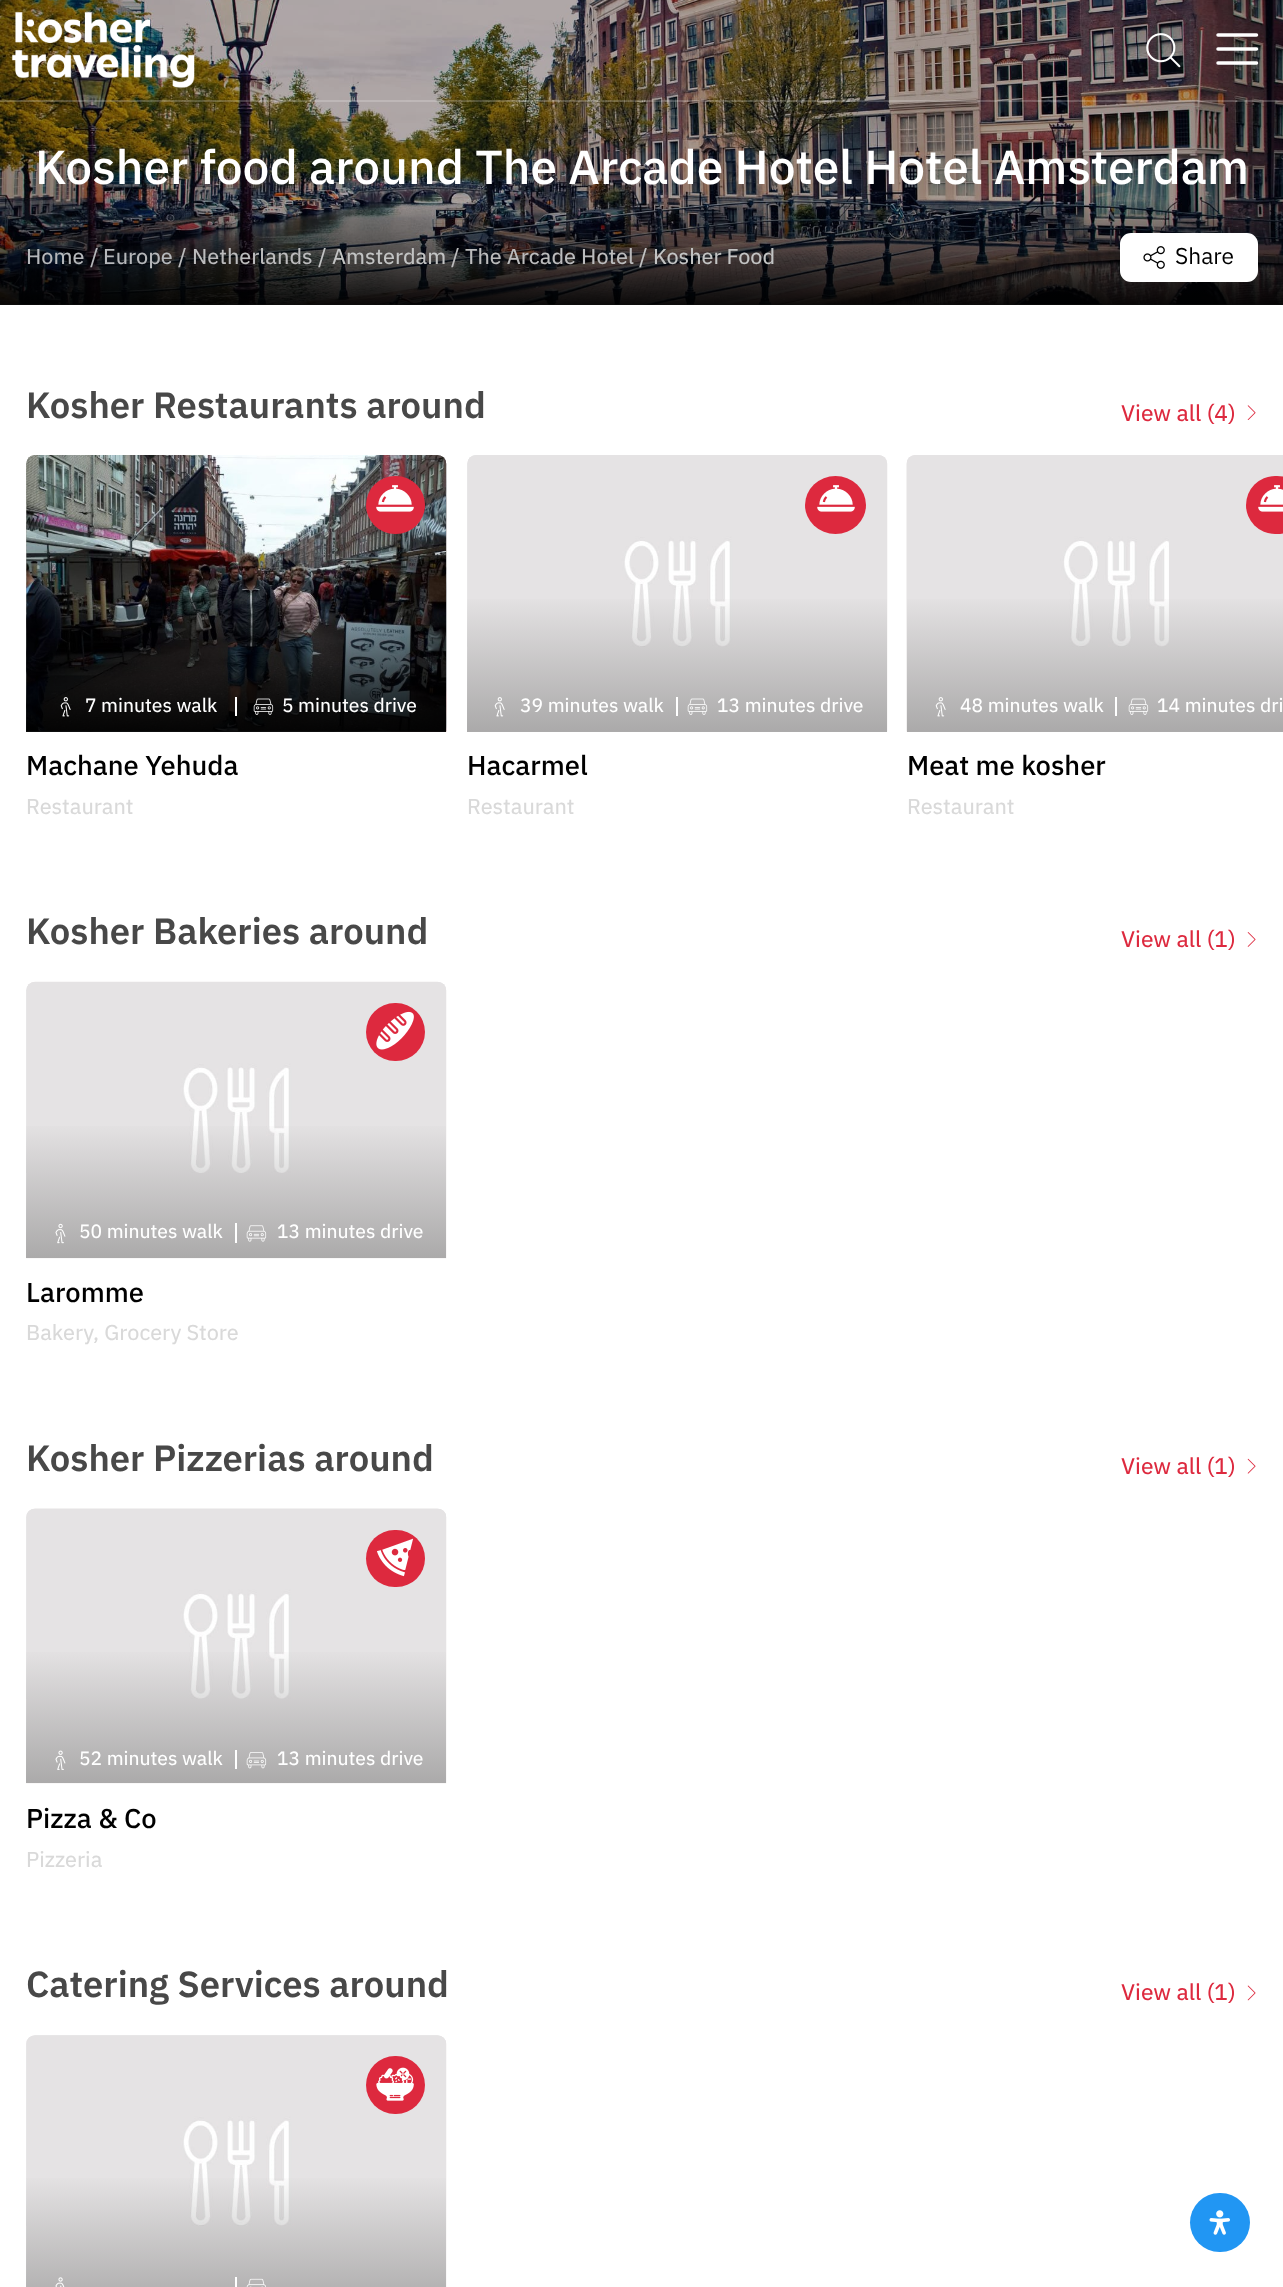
<svg xmlns="http://www.w3.org/2000/svg" width="1283" height="2287" viewBox="0 0 1283 2287">
  <style>
    .t1 { font: 500 47.75px IBM Plex Sans Hebrew; fill: #fff; }
    .t2 { font: 500 21.6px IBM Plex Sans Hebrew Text; fill: #b5b7ba; }
    .t3 { font: 500 21.6px IBM Plex Sans Hebrew Text; fill: #bbbbbc; }
    .t4 { font: 500 21.6px IBM Plex Sans Hebrew Text; fill: #c2c3c3; }
    .t5 { font: 22.75px IBM Plex Sans Hebrew; fill: #000; }
    .t6 { font: 600 36.4px IBM Plex Sans Hebrew; fill: #484848; }
    .t7 { font: 500 22.75px IBM Plex Sans Hebrew Text; fill: #dd293e; }
    .t8 { font: 500 19.25px IBM Plex Sans Hebrew Text; fill: #fff; }
    .t9 { font: 500 27.25px IBM Plex Sans Hebrew; fill: #000; }
    .t10 { font: 500 21.6px IBM Plex Sans Hebrew Text; fill: #d9d9d9; }
  </style>
  <defs>
    <linearGradient id="g1" gradientUnits="userSpaceOnUse" x1="642" y1="96" x2="642" y2="315"><stop offset="0.01" stop-color="#000" stop-opacity="0"/><stop offset="0.48" stop-color="#000" stop-opacity="0"/><stop offset="1" stop-color="#000"/></linearGradient>
    <linearGradient id="g2" gradientUnits="userSpaceOnUse" x1="236" y1="455" x2="236" y2="745"><stop offset="0.01" stop-color="#000" stop-opacity="0"/><stop offset="0.48" stop-color="#000" stop-opacity="0"/><stop offset="1" stop-color="#000"/></linearGradient>
    <linearGradient id="g3" gradientUnits="userSpaceOnUse" x1="677" y1="455" x2="677" y2="745"><stop offset="0.01" stop-color="#000" stop-opacity="0"/><stop offset="0.48" stop-color="#a5a4a4" stop-opacity="0"/><stop offset="1" stop-color="#a5a4a4"/></linearGradient>
    <linearGradient id="g4" gradientUnits="userSpaceOnUse" x1="1117" y1="455" x2="1117" y2="745"><stop offset="0.01" stop-color="#000" stop-opacity="0"/><stop offset="0.48" stop-color="#a5a4a4" stop-opacity="0"/><stop offset="1" stop-color="#a5a4a4"/></linearGradient>
    <linearGradient id="g5" gradientUnits="userSpaceOnUse" x1="236" y1="982" x2="236" y2="1272"><stop offset="0.01" stop-color="#000" stop-opacity="0"/><stop offset="0.48" stop-color="#a5a4a4" stop-opacity="0"/><stop offset="1" stop-color="#a5a4a4"/></linearGradient>
    <linearGradient id="g6" gradientUnits="userSpaceOnUse" x1="236" y1="1509" x2="236" y2="1797"><stop offset="0.01" stop-color="#000" stop-opacity="0"/><stop offset="0.48" stop-color="#a5a4a4" stop-opacity="0"/><stop offset="1" stop-color="#a5a4a4"/></linearGradient>
    <linearGradient id="g7" gradientUnits="userSpaceOnUse" x1="236" y1="2035" x2="236" y2="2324"><stop offset="0.01" stop-color="#000" stop-opacity="0"/><stop offset="0.48" stop-color="#a5a4a4" stop-opacity="0"/><stop offset="1" stop-color="#a5a4a4"/></linearGradient>
  </defs>
  <rect width="100%" height="100%" fill="#fff"/>
  <rect x="0" y="304" width="1283" height="1" fill="#b3b3b3"/>
  <image x="0" y="0" width="1283" height="305" href="images/3.png"/>
  <rect x="0" y="100" width="1283" height="2" fill="#ffffff33"/>
  <image x="12" y="12" width="183" height="76" href="images/1.png"/>
  <image x="1146" y="33" width="35" height="35" href="images/2.png"/>
  <path d="M1218 35H1256.5M1218 49H1256.5M1218 63H1256.5" fill="none" stroke="#fff" stroke-width="3.5" stroke-linecap="round"/>
  <rect x="0" y="204" width="1283" height="101" fill="url(#g1)"/>
  <text x="35" y="184" class="t1">Kosher food around The Arcade Hotel Hotel Amsterdam</text>
  <text x="26" y="264" class="t2">Home</text>
  <text x="90" y="264" class="t2">/</text>
  <text x="103" y="264" class="t2">Europe</text>
  <text x="178" y="264" class="t3">/</text>
  <text x="192" y="264" class="t3">Netherlands</text>
  <text x="318" y="264" class="t4">/</text>
  <text x="332" y="264" class="t4">Amsterdam</text>
  <text x="451" y="264" class="t3">/</text>
  <text x="465" y="264" class="t3">The Arcade Hotel</text>
  <text x="639" y="264" class="t4">/</text>
  <text x="653" y="264" class="t4">Kosher Food</text>
  <rect x="1121" y="234" width="136" height="47" rx="10" fill="#fff" stroke="#fff" stroke-width="2"/>
  <image x="1143" y="246" width="22" height="23" href="images/4.png"/>
  <text x="1175" y="264" class="t5">Share</text>
  <text x="26" y="418" class="t6">Kosher Restaurants around</text>
  <text x="1121" y="421" class="t7">View all (4)</text>
  <image x="1247" y="405" width="9" height="15" href="images/5.png"/>
  <image x="26" y="455" width="421" height="277" href="images/6.png"/>
  <image x="26" y="455" width="421" height="277" href="images/7.png"/>
  <rect x="366" y="476" width="59" height="58" rx="29" fill="#dd293e"/>
  <image x="376" y="485" width="38" height="27" href="images/8.png"/>
  <rect x="26" y="597" width="420" height="135" fill="url(#g2)"/>
  <image x="60" y="697" width="11" height="20" href="images/9.png"/>
  <text x="85" y="712" class="t8">7 minutes walk</text>
  <rect x="235" y="697" width="2" height="19" fill="#fff"/>
  <image x="253" y="698" width="21" height="17" href="images/10.png"/>
  <text x="282" y="712" class="t8">5 minutes drive</text>
  <text x="26" y="775" class="t9">Machane Yehuda</text>
  <text x="26" y="814" class="t10">Restaurant</text>
  <image x="467" y="455" width="421" height="277" href="images/11.png"/>
  <image x="467" y="455" width="420" height="192" href="images/12.png"/>
  <ellipse cx="835.5" cy="505" rx="30.5" ry="29" fill="#dd293e"/>
  <image x="817" y="485" width="38" height="27" href="images/8.png"/>
  <rect x="467" y="599" width="420" height="133" fill="url(#g3)"/>
  <image x="494" y="697" width="11" height="20" href="images/13.png"/>
  <text x="520" y="712" class="t8">39 minutes walk</text>
  <rect x="676" y="697" width="2" height="19" fill="#fff"/>
  <image x="687" y="698" width="21" height="17" href="images/14.png"/>
  <text x="717" y="712" class="t8">13 minutes drive</text>
  <text x="467" y="775" class="t9">Hacarmel</text>
  <text x="467" y="814" class="t10">Restaurant</text>
  <image x="906" y="455" width="377" height="277" href="images/15.png"/>
  <image x="907" y="455" width="262" height="192" href="images/16.png"/>
  <rect x="1246" y="476" width="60" height="58" rx="29" fill="#dd293e"/>
  <image x="1258" y="485" width="25" height="27" href="images/17.png"/>
  <rect x="907" y="599" width="376" height="133" fill="url(#g4)"/>
  <image x="935" y="697" width="11" height="20" href="images/13.png"/>
  <text x="960" y="712" class="t8">48 minutes walk</text>
  <rect x="1115" y="697" width="2" height="19" fill="#fff"/>
  <image x="1128" y="698" width="21" height="17" href="images/14.png"/>
  <text x="1157" y="712" class="t8">14 minutes dri</text>
  <text x="907" y="775" class="t9">Meat me kosher</text>
  <text x="907" y="814" class="t10">Restaurant</text>
  <text x="26" y="944" class="t6">Kosher Bakeries around</text>
  <text x="1121" y="947" class="t7">View all (1)</text>
  <image x="1247" y="932" width="9" height="15" href="images/18.png"/>
  <image x="26" y="981" width="421" height="278" href="images/19.png"/>
  <image x="26" y="982" width="420" height="191" href="images/20.png"/>
  <rect x="366" y="1003" width="59" height="58" rx="29" fill="#dd293e"/>
  <image x="376" y="1011" width="38" height="39" href="images/21.png"/>
  <rect x="26" y="1126" width="420" height="132" fill="url(#g5)"/>
  <image x="55" y="1223" width="11" height="21" href="images/22.png"/>
  <text x="79" y="1238" class="t8">50 minutes walk</text>
  <rect x="235" y="1223" width="2" height="20" fill="#fff"/>
  <image x="246" y="1225" width="21" height="17" href="images/23.png"/>
  <text x="277" y="1238" class="t8">13 minutes drive</text>
  <text x="26" y="1302" class="t9">Laromme</text>
  <text x="26" y="1340" class="t10">Bakery, Grocery Store</text>
  <text x="26" y="1471" class="t6">Kosher Pizzerias around</text>
  <text x="1121" y="1474" class="t7">View all (1)</text>
  <image x="1247" y="1458" width="9" height="16" href="images/24.png"/>
  <image x="26" y="1508" width="421" height="276" href="images/25.png"/>
  <image x="26" y="1509" width="420" height="190" href="images/26.png"/>
  <rect x="366" y="1530" width="59" height="57" rx="28.5" fill="#dd293e"/>
  <image x="377" y="1538" width="37" height="39" href="images/27.png"/>
  <rect x="26" y="1652" width="420" height="131" fill="url(#g6)"/>
  <image x="55" y="1750" width="11" height="20" href="images/28.png"/>
  <text x="79" y="1765" class="t8">52 minutes walk</text>
  <rect x="235" y="1750" width="2" height="19" fill="#fff"/>
  <image x="246" y="1752" width="21" height="17" href="images/29.png"/>
  <text x="277" y="1765" class="t8">13 minutes drive</text>
  <text x="26" y="1828" class="t9">Pizza &amp; Co</text>
  <text x="26" y="1867" class="t10">Pizzeria</text>
  <text x="26" y="1997" class="t6">Catering Services around</text>
  <text x="1121" y="2000" class="t7">View all (1)</text>
  <image x="1247" y="1985" width="9" height="16" href="images/30.png"/>
  <image x="26" y="2035" width="421" height="252" href="images/31.png"/>
  <image x="26" y="2035" width="420" height="191" href="images/32.png"/>
  <rect x="366" y="2056" width="59" height="58" rx="29" fill="#dd293e"/>
  <image x="376" y="2067" width="38" height="34" href="images/33.png"/>
  <rect x="26" y="2178" width="420" height="109" fill="url(#g7)"/>
  <image x="55" y="2277" width="10" height="10" href="images/34.png"/>
  <rect x="235" y="2277" width="2" height="10" fill="#fff"/>
  <image x="246" y="2278" width="20" height="9" href="images/35.png"/>
  <rect x="1190" y="2193" width="60" height="59" rx="29.5" fill="#2196f3"/>
  <image x="1209" y="2210" width="21" height="25" href="images/36.png"/>
</svg>
